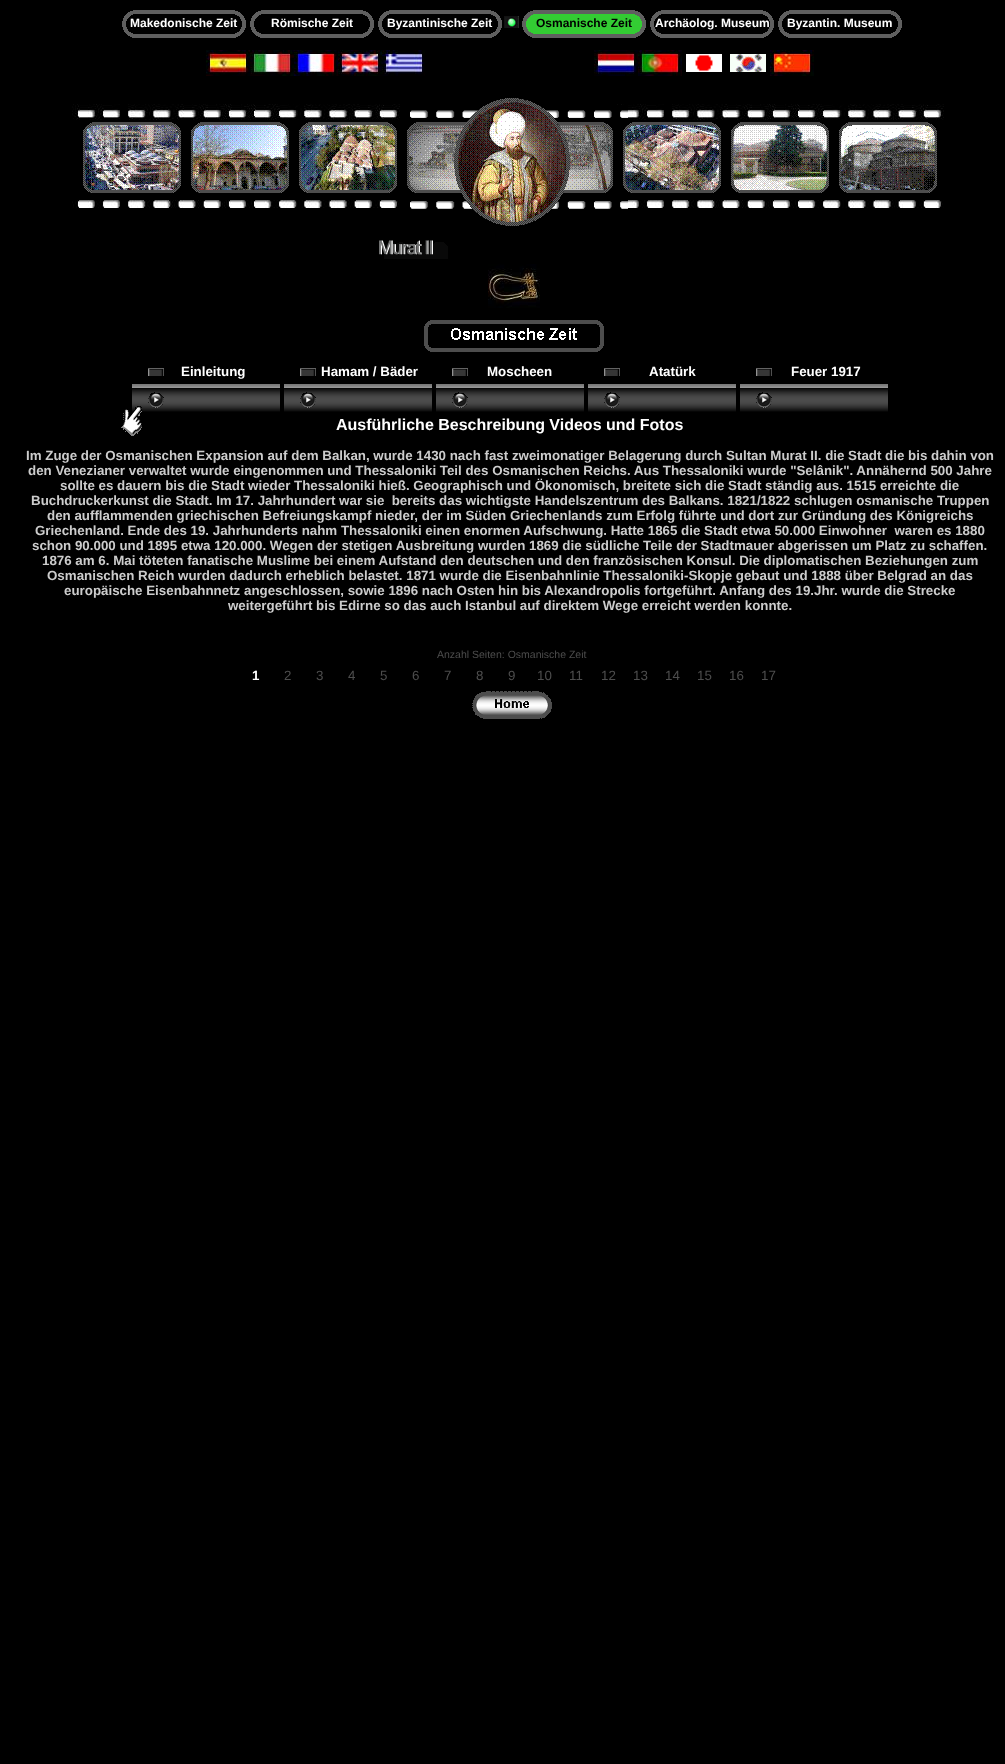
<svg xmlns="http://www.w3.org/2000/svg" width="1005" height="1764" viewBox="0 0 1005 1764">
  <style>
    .t1 { font: bold 12px Liberation Sans; fill: #fff; }
    .t2 { font: bold 12px Liberation Sans; fill: #000; }
    .t3 { font: bold 13.33px Liberation Sans; fill: #fff; }
    .t4 { font: bold 16px Liberation Sans; fill: #fff; }
    .t5 { font: bold 13.33px Liberation Sans; fill: #ccc; }
    .t6 { font: 10.5px Liberation Sans; fill: #4d4d4d; }
    .t7 { font: 13.33px Liberation Sans; fill: #4d4d4d; }
  </style>
  <rect width="100%" height="100%" fill="#000"/>
  <image x="122" y="10" width="14" height="28" href="images/1.png"/>
  <rect x="136" y="10" width="96" height="4" fill="#5f5f5f"/>
  <image x="232" y="10" width="14" height="28" href="images/2.png"/>
  <image x="250" y="10" width="14" height="28" href="images/1.png"/>
  <rect x="264" y="10" width="96" height="4" fill="#5f5f5f"/>
  <image x="360" y="10" width="14" height="28" href="images/2.png"/>
  <image x="378" y="10" width="14" height="28" href="images/1.png"/>
  <rect x="392" y="10" width="96" height="4" fill="#5f5f5f"/>
  <image x="488" y="10" width="14" height="28" href="images/2.png"/>
  <image x="522" y="10" width="14" height="28" href="images/3.png"/>
  <rect x="536" y="10" width="96" height="4" fill="#5f5f5f"/>
  <image x="632" y="10" width="14" height="28" href="images/4.png"/>
  <image x="650" y="10" width="14" height="28" href="images/5.png"/>
  <rect x="664" y="10" width="96" height="4" fill="#5f5f5f"/>
  <image x="760" y="10" width="14" height="28" href="images/6.png"/>
  <image x="778" y="10" width="14" height="28" href="images/1.png"/>
  <rect x="792" y="10" width="96" height="4" fill="#5f5f5f"/>
  <image x="888" y="10" width="14" height="28" href="images/2.png"/>
  <text x="130" y="27" class="t1">Makedonische Zeit</text>
  <text x="271" y="27" class="t1">Römische Zeit</text>
  <text x="387" y="27" class="t1">Byzantinische Zeit</text>
  <image x="504" y="16" width="15" height="12" href="images/7.png"/>
  <rect x="536" y="14" width="96" height="20" fill="#3c3"/>
  <text x="536" y="27" class="t2">Osmanische Zeit</text>
  <text x="655" y="27" class="t1">Archäolog. Museum</text>
  <text x="787" y="27" class="t1">Byzantin. Museum</text>
  <rect x="136" y="34" width="96" height="4" fill="#5f5f5f"/>
  <rect x="264" y="34" width="96" height="4" fill="#5f5f5f"/>
  <rect x="392" y="34" width="96" height="4" fill="#5f5f5f"/>
  <rect x="536" y="34" width="96" height="4" fill="#5f5f5f"/>
  <rect x="664" y="34" width="96" height="4" fill="#5f5f5f"/>
  <rect x="792" y="34" width="96" height="4" fill="#5f5f5f"/>
  <image x="206" y="50" width="44" height="26" href="images/8.png"/>
  <image x="250" y="50" width="44" height="26" href="images/9.png"/>
  <image x="294" y="50" width="44" height="26" href="images/10.png"/>
  <image x="338" y="50" width="44" height="26" href="images/11.png"/>
  <image x="382" y="50" width="43" height="26" href="images/12.png"/>
  <image x="594" y="50" width="44" height="26" href="images/13.png"/>
  <image x="638" y="50" width="44" height="26" href="images/14.png"/>
  <image x="686" y="54" width="36" height="18" href="images/15.png"/>
  <image x="730" y="54" width="36" height="18" href="images/16.png"/>
  <image x="770" y="50" width="44" height="26" href="images/17.png"/>
  <image x="72" y="104" width="328" height="104" href="images/18.png"/>
  <image x="616" y="104" width="328" height="104" href="images/18.png"/>
  <image x="410" y="105" width="218" height="104" href="images/20.png"/>
  <image x="407" y="123" width="57" height="70" href="images/24.png"/>
  <rect x="416" y="122" width="51" height="3" fill="#4d4d4d"/>
  <image x="560" y="123" width="53" height="70" href="images/25.png"/>
  <rect x="558" y="122" width="46" height="3" fill="#4d4d4d"/>
  <rect x="416" y="190" width="45" height="3" fill="#4d4d4d"/>
  <rect x="563" y="190" width="41" height="3" fill="#4d4d4d"/>
  <image x="454" y="98" width="116" height="128" href="images/19.png"/>
  <image x="83" y="123" width="98" height="70" href="images/21.png"/>
  <rect x="92" y="122" width="80" height="3" fill="#4d4d4d"/>
  <image x="191" y="123" width="98" height="70" href="images/22.png"/>
  <rect x="200" y="122" width="80" height="3" fill="#4d4d4d"/>
  <image x="299" y="123" width="98" height="70" href="images/23.png"/>
  <rect x="308" y="122" width="80" height="3" fill="#4d4d4d"/>
  <image x="623" y="123" width="98" height="70" href="images/26.png"/>
  <rect x="632" y="122" width="80" height="3" fill="#4d4d4d"/>
  <image x="731" y="123" width="98" height="70" href="images/27.png"/>
  <rect x="740" y="122" width="80" height="3" fill="#4d4d4d"/>
  <image x="839" y="123" width="98" height="70" href="images/28.png"/>
  <rect x="848" y="122" width="80" height="3" fill="#4d4d4d"/>
  <rect x="92" y="190" width="80" height="3" fill="#4d4d4d"/>
  <rect x="200" y="190" width="80" height="3" fill="#4d4d4d"/>
  <rect x="308" y="190" width="80" height="3" fill="#4d4d4d"/>
  <rect x="632" y="190" width="80" height="3" fill="#4d4d4d"/>
  <rect x="740" y="190" width="80" height="3" fill="#4d4d4d"/>
  <rect x="848" y="190" width="80" height="3" fill="#4d4d4d"/>
  <image x="379" y="240" width="69" height="19" href="images/29.png"/>
  <image x="488" y="264" width="52" height="44" href="images/30.png"/>
  <image x="424" y="320" width="180" height="32" href="images/31.png"/>
  <image x="148" y="368" width="16" height="8" href="images/32.png"/>
  <text x="181" y="376" class="t3">Einleitung</text>
  <image x="300" y="368" width="16" height="8" href="images/32.png"/>
  <text x="321" y="376" class="t3">Hamam / Bäder</text>
  <image x="452" y="368" width="16" height="8" href="images/33.png"/>
  <text x="487" y="376" class="t3">Moscheen</text>
  <image x="604" y="368" width="16" height="8" href="images/33.png"/>
  <text x="649" y="376" class="t3">Atatürk</text>
  <image x="756" y="368" width="16" height="8" href="images/32.png"/>
  <text x="791" y="376" class="t3">Feuer 1917</text>
  <image x="132" y="384" width="148" height="4" href="images/34.png"/>
  <image x="284" y="384" width="148" height="4" href="images/34.png"/>
  <image x="436" y="384" width="148" height="4" href="images/34.png"/>
  <image x="588" y="384" width="148" height="4" href="images/34.png"/>
  <image x="740" y="384" width="148" height="4" href="images/34.png"/>
  <image x="132" y="388" width="148" height="24" href="images/35.png"/>
  <image x="284" y="388" width="148" height="24" href="images/35.png"/>
  <image x="436" y="388" width="148" height="24" href="images/35.png"/>
  <image x="588" y="388" width="148" height="24" href="images/35.png"/>
  <image x="740" y="388" width="148" height="24" href="images/35.png"/>
  <image x="148" y="392" width="16" height="16" href="images/36.png"/>
  <image x="300" y="392" width="16" height="16" href="images/36.png"/>
  <image x="452" y="392" width="16" height="16" href="images/36.png"/>
  <image x="604" y="392" width="16" height="16" href="images/36.png"/>
  <image x="756" y="392" width="16" height="16" href="images/36.png"/>
  <image x="121" y="406" width="21" height="30" href="images/37.png"/>
  <text x="336" y="430" class="t4">Ausführliche Beschreibung Videos und Fotos</text>
  <text x="26" y="460" class="t5">Im Zuge der Osmanischen Expansion auf dem Balkan, wurde 1430 nach fast zweimonatiger Belagerung durch Sultan Murat II. die Stadt die bis dahin von</text>
  <text x="28" y="475" class="t5">den Venezianer verwaltet wurde eingenommen und Thessaloniki Teil des Osmanischen Reichs. Aus Thessaloniki wurde "Selânik". Annähernd 500 Jahre</text>
  <text x="60" y="490" class="t5">sollte es dauern bis die Stadt wieder Thessaloniki hieß. Geographisch und Ökonomisch, breitete sich die Stadt ständig aus. 1515 erreichte die</text>
  <text x="31" y="505" class="t5" xml:space="preserve">Buchdruckerkunst die Stadt. Im 17. Jahrhundert war sie  bereits das wichtigste Handelszentrum des Balkans. 1821/1822 schlugen osmanische Truppen</text>
  <text x="47" y="520" class="t5">den aufflammenden griechischen Befreiungskampf nieder, der im Süden Griechenlands zum Erfolg führte und dort zur Gründung des Königreichs</text>
  <text x="35" y="535" class="t5" xml:space="preserve">Griechenland. Ende des 19. Jahrhunderts nahm Thessaloniki einen enormen Aufschwung. Hatte 1865 die Stadt etwa 50.000 Einwohner  waren es 1880</text>
  <text x="32" y="550" class="t5">schon 90.000 und 1895 etwa 120.000. Wegen der stetigen Ausbreitung wurden 1869 die südliche Teile der Stadtmauer abgerissen um Platz zu schaffen.</text>
  <text x="42" y="565" class="t5">1876 am 6. Mai töteten fanatische Muslime bei einem Aufstand den deutschen und den französischen Konsul. Die diplomatischen Beziehungen zum</text>
  <text x="47" y="580" class="t5">Osmanischen Reich wurden dadurch erheblich belastet. 1871 wurde die Eisenbahnlinie Thessaloniki-Skopje gebaut und 1888 über Belgrad an das</text>
  <text x="64" y="595" class="t5">europäische Eisenbahnnetz angeschlossen, sowie 1896 nach Osten hin bis Alexandropolis fortgeführt. Anfang des 19.Jhr. wurde die Strecke</text>
  <text x="228" y="610" class="t5">weitergeführt bis Edirne so das auch Istanbul auf direktem Wege erreicht werden konnte.</text>
  <text x="437" y="658" class="t6">Anzahl Seiten: Osmanische Zeit</text>
  <text x="252" y="680" class="t3">1</text>
  <text x="284" y="680" class="t7">2</text>
  <text x="316" y="680" class="t7">3</text>
  <text x="348" y="680" class="t7">4</text>
  <text x="380" y="680" class="t7">5</text>
  <text x="412" y="680" class="t7">6</text>
  <text x="444" y="680" class="t7">7</text>
  <text x="476" y="680" class="t7">8</text>
  <text x="508" y="680" class="t7">9</text>
  <text x="537" y="680" class="t7">10</text>
  <text x="569" y="680" class="t7">11</text>
  <text x="601" y="680" class="t7">12</text>
  <text x="633" y="680" class="t7">13</text>
  <text x="665" y="680" class="t7">14</text>
  <text x="697" y="680" class="t7">15</text>
  <text x="729" y="680" class="t7">16</text>
  <text x="761" y="680" class="t7">17</text>
  <image x="472" y="691" width="80" height="28" href="images/38.png"/>
</svg>
